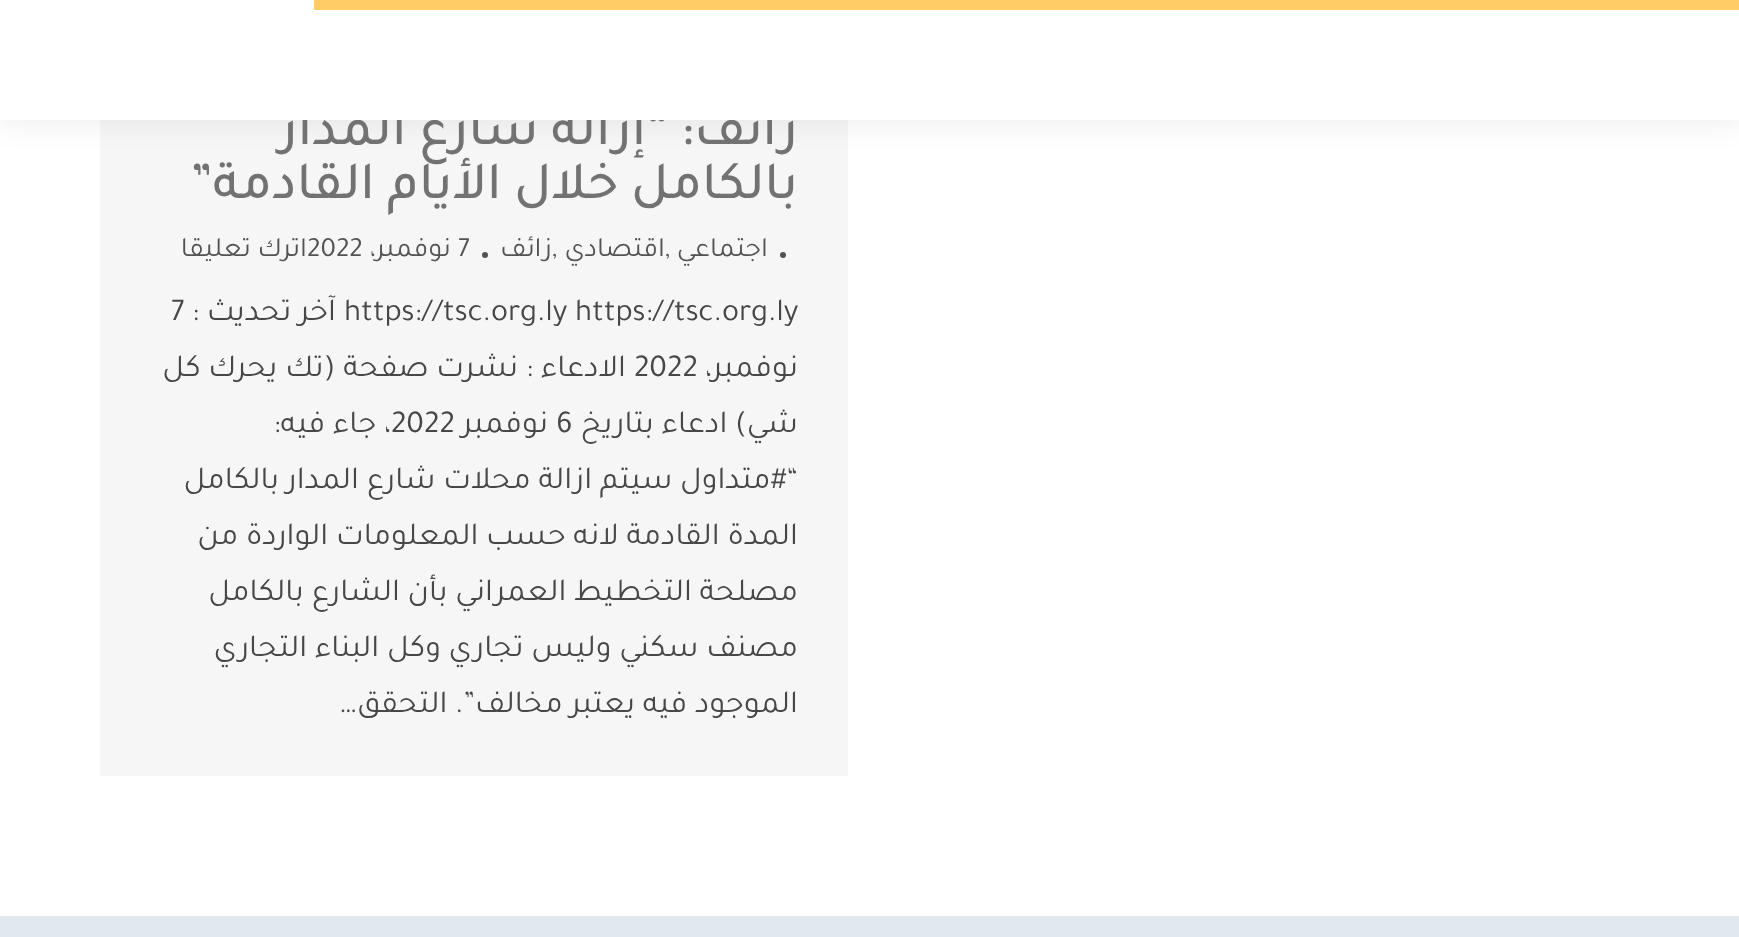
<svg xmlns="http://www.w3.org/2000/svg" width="1739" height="937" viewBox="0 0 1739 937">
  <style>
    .t1 { font: 500 54px Tajawal; direction: rtl; fill: #727272; }
    .t2 { font: 28px Tajawal; direction: rtl; fill: #545254; }
    .t3 { font: 28px Tajawal; fill: #545254; }
    .t4 { font: 32px Tajawal; fill: #474748; }
    .t5 { font: 32px Tajawal; direction: rtl; fill: #474748; }
  </style>
  <rect width="100%" height="100%" fill="#fff"/>
  <rect x="100" y="120" width="748" height="656" fill="#f6f6f6"/>
  <rect x="-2" y="-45" width="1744" height="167" fill="#00000012" filter="blur(15px)"/>
  <text x="798" y="144" class="t1">زائف: “إزالة شارع المدار</text>
  <rect x="0" y="0" width="1739" height="120" fill="#fff"/>
  <rect x="314" y="0" width="1425" height="10" fill="#fc6"/>
  <text x="798" y="198" class="t1">بالكامل خلال الأيام القادمة”</text>
  <circle cx="783" cy="255" r="3" fill="#545254"/>
  <text x="768" y="256" class="t2">اجتماعي</text>
  <text x="665" y="256" class="t3">,</text>
  <text x="665" y="256" class="t2">اقتصادي</text>
  <text x="552" y="256" class="t3">,</text>
  <text x="552" y="256" class="t2">زائف</text>
  <circle cx="485" cy="255" r="3" fill="#545254"/>
  <text x="458" y="256" class="t3">7</text>
  <text x="451" y="256" class="t2">نوفمبر،</text>
  <text x="307" y="256" class="t3">2022</text>
  <text x="307" y="256" class="t2">اترك تعليقا</text>
  <text x="344" y="320" class="t4">https://tsc.org.ly https://tsc.org.ly</text>
  <text x="336" y="320" class="t5">آخر تحديث :</text>
  <text x="171" y="320" class="t4">7</text>
  <text x="798" y="376" class="t5">نوفمبر،</text>
  <text x="634" y="376" class="t4">2022</text>
  <text x="626" y="376" class="t5">الادعاء : نشرت صفحة (تك يحرك كل</text>
  <text x="798" y="432" class="t5">شي) ادعاء بتاريخ</text>
  <text x="556" y="432" class="t4">6</text>
  <text x="548" y="432" class="t5">نوفمبر</text>
  <text x="391" y="432" class="t4">2022</text>
  <text x="391" y="432" class="t5">، جاء فيه:</text>
  <text x="798" y="488" class="t5">“#متداول سيتم ازالة محلات شارع المدار بالكامل</text>
  <text x="798" y="544" class="t5">المدة القادمة لانه حسب المعلومات الواردة من</text>
  <text x="798" y="600" class="t5">مصلحة التخطيط العمراني بأن الشارع بالكامل</text>
  <text x="798" y="656" class="t5">مصنف سكني وليس تجاري وكل البناء التجاري</text>
  <text x="798" y="712" class="t5">الموجود فيه يعتبر مخالف”. التحقق…</text>
  <rect x="0" y="916" width="1739" height="21" fill="#dfe9ef"/>
</svg>
